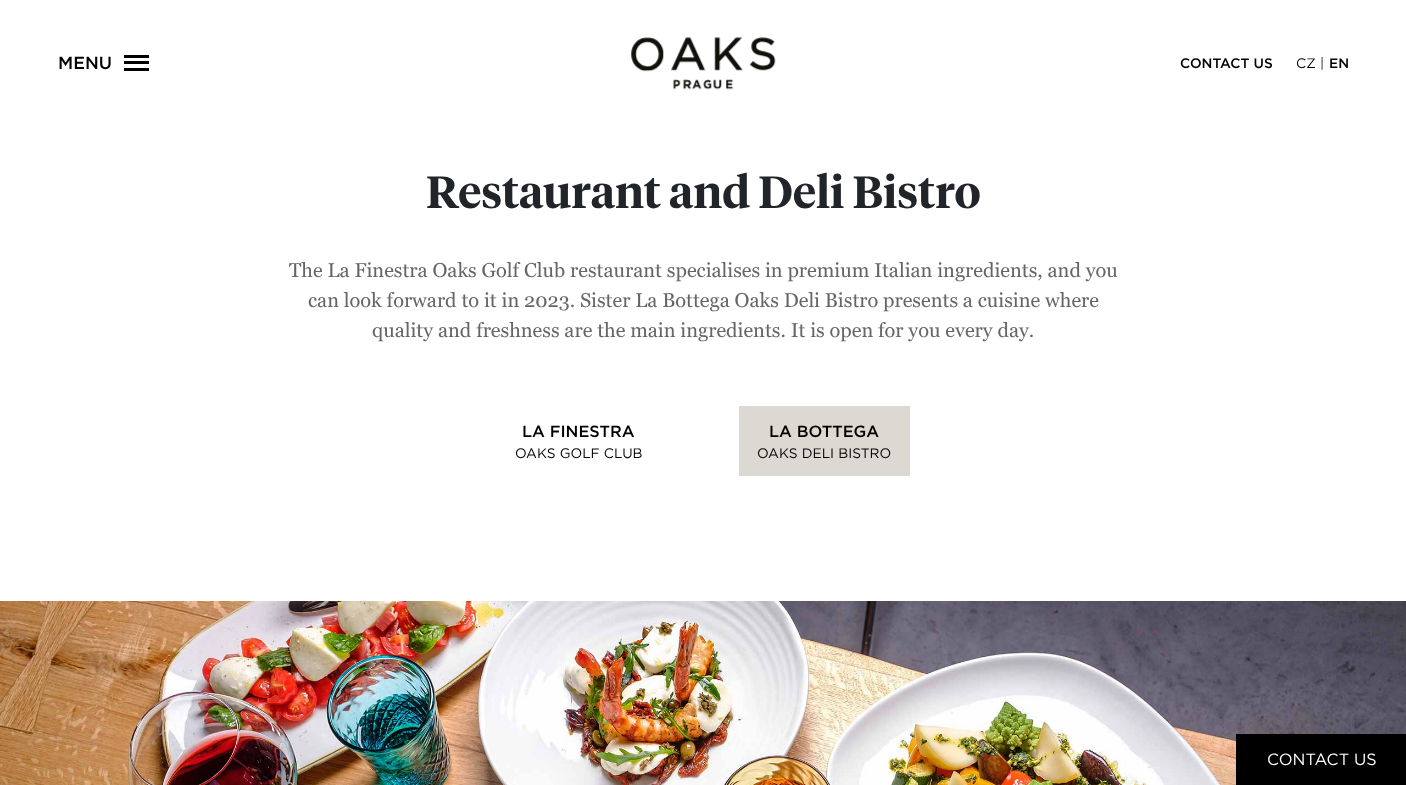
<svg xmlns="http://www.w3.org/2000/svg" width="1406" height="785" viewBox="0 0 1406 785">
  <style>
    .t1 { font: 300 17.5px 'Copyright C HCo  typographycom'; fill: #000; }
    .t2 { font: 300 13.75px 'Copyright C HCo  typographycom'; fill: #000; }
    .t3 { font: 300 13.75px 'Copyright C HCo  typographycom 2'; fill: #000; }
    .t4 { font: 300 13.75px 'Copyright C HCo  typographycom 2'; fill: #212529; }
    .t5 { font: 600 45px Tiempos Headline; fill: #212529; }
    .t6 { font: 20px Georgia; fill: #666; }
    .t7 { font: 300 16.25px 'Copyright C HCo  typographycom'; fill: #000; }
    .t8 { font: 300 16.25px 'Copyright C HCo  typographycom 2'; fill: #fff; }
  </style>
  <rect width="100%" height="100%" fill="#fff"/>
  <text x="58" y="69" class="t1">MENU</text>
  <rect x="124" y="61" width="25" height="3" fill="#000"/>
  <rect x="124" y="55" width="25" height="3" fill="#000"/>
  <rect x="124" y="68" width="25" height="3" fill="#000"/>
  <image x="631" y="37" width="145" height="53" href="images/1.png"/>
  <text x="1180" y="68" class="t2">CONTACT US</text>
  <text x="1296" y="68" class="t3">CZ</text>
  <text x="1320" y="68" class="t4">|</text>
  <text x="1329" y="68" class="t2">EN</text>
  <text x="426" y="208" class="t5">Restaurant and Deli Bistro</text>
  <text x="289" y="277" class="t6">The La Finestra Oaks Golf Club restaurant specialises in premium Italian ingredients, and you</text>
  <text x="308" y="307" class="t6">can look forward to it in 2023. Sister La Bottega Oaks Deli Bistro presents a cuisine where</text>
  <text x="372" y="337" class="t6">quality and freshness are the main ingredients. It is open for you every day.</text>
  <text x="522" y="437" class="t7">LA FINESTRA</text>
  <text x="515" y="458" class="t3">OAKS GOLF CLUB</text>
  <rect x="739" y="406" width="171" height="70" fill="#dcd8d2"/>
  <text x="769" y="437" class="t7">LA BOTTEGA</text>
  <text x="757" y="458" class="t3">OAKS DELI BISTRO</text>
  <image x="0" y="601" width="1406" height="184" href="images/2.png"/>
  <rect x="1236" y="734" width="170" height="51" fill="#000"/>
  <text x="1267" y="765" class="t8">CONTACT US</text>
</svg>
